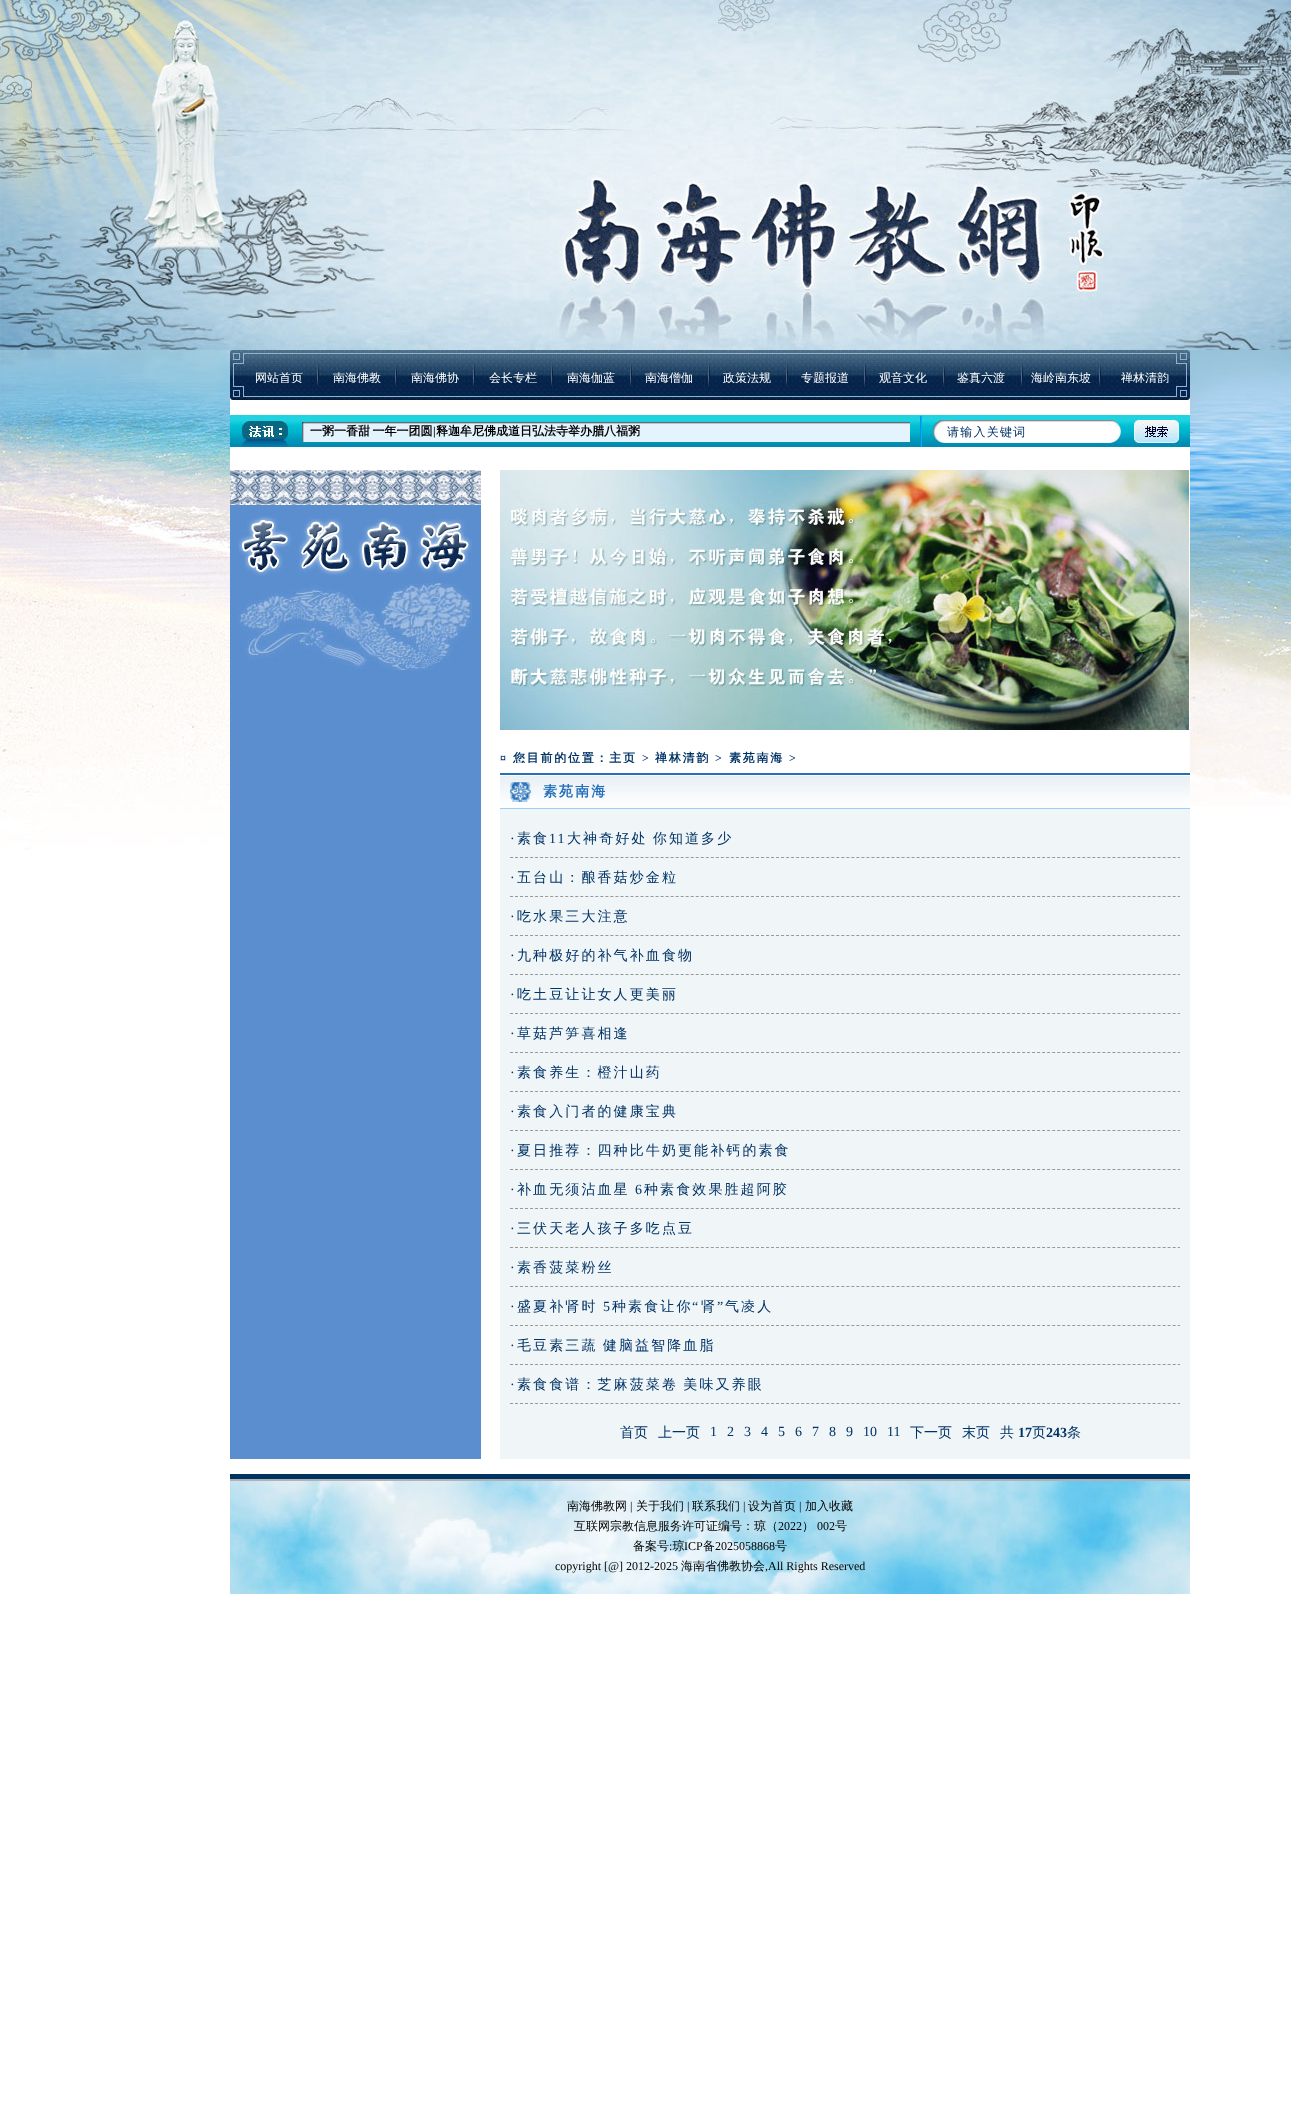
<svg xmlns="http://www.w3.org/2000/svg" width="1291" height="2128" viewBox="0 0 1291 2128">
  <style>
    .t1 { font: 500 12px WenQuanYi Zen Hei; fill: #fff; }
    .t2 { font: bold 12px WenQuanYi Zen Hei; fill: #000; }
    .t3 { font: bold 12px Liberation Serif; fill: #000; }
    .t4 { font: 500 12px WenQuanYi Zen Hei; letter-spacing: 1.25px; fill: #036; }
    .t5 { font: bold 12px Liberation Serif; letter-spacing: 1.75px; fill: #036; }
    .t6 { font: bold 12px WenQuanYi Zen Hei; letter-spacing: 1.75px; fill: #036; }
    .t7 { font: bold 14px WenQuanYi Zen Hei; letter-spacing: 2.1px; fill: #2670b9; }
    .t8 { font: 14px Liberation Serif; letter-spacing: 2.1px; fill: #036; }
    .t9 { font: 500 14px WenQuanYi Zen Hei; letter-spacing: 2.1px; fill: #036; }
    .t10 { font: 500 14px WenQuanYi Zen Hei; fill: #036; }
    .t11 { font: 14px Liberation Serif; fill: #036; }
    .t12 { font: bold 14px Liberation Serif; fill: #036; }
    .t13 { font: 500 12px WenQuanYi Zen Hei; fill: #000; }
    .t14 { font: 12px Liberation Serif; fill: #000; }
  </style>
  <defs>
    <clipPath id="clip1"><rect x="230" y="370" width="88" height="13"/></clipPath>
    <clipPath id="clip2"><rect x="318" y="370" width="78" height="13"/></clipPath>
    <clipPath id="clip3"><rect x="396" y="370" width="78" height="13"/></clipPath>
    <clipPath id="clip4"><rect x="474" y="370" width="78" height="13"/></clipPath>
    <clipPath id="clip5"><rect x="552" y="370" width="78" height="13"/></clipPath>
    <clipPath id="clip6"><rect x="630" y="370" width="78" height="13"/></clipPath>
    <clipPath id="clip7"><rect x="708" y="370" width="78" height="13"/></clipPath>
    <clipPath id="clip8"><rect x="786" y="370" width="78" height="13"/></clipPath>
    <clipPath id="clip9"><rect x="864" y="370" width="78" height="13"/></clipPath>
    <clipPath id="clip10"><rect x="942" y="370" width="78" height="13"/></clipPath>
    <clipPath id="clip11"><rect x="1020" y="370" width="86" height="13"/></clipPath>
    <clipPath id="clip12"><rect x="1106" y="370" width="78" height="13"/></clipPath>
    <clipPath id="clip13"><rect x="500" y="750" width="690" height="13"/></clipPath>
  </defs>
  <rect width="100%" height="100%" fill="#fff"/>
  <image x="0" y="350" width="230" height="500" href="images/1.png"/>
  <image x="1190" y="350" width="101" height="456" href="images/2.png"/>
  <image x="0" y="0" width="1291" height="100" href="images/3.png"/>
  <image x="0" y="100" width="1291" height="100" href="images/4.png"/>
  <image x="0" y="200" width="1291" height="100" href="images/5.png"/>
  <image x="0" y="300" width="1291" height="50" href="images/6.png"/>
  <image x="230" y="350" width="960" height="50" href="images/7.png"/>
  <g clip-path="url(#clip1)">
    <text x="255" y="382" class="t1">网站首页</text>
  </g>
  <g clip-path="url(#clip2)">
    <text x="333" y="382" class="t1">南海佛教</text>
  </g>
  <g clip-path="url(#clip3)">
    <text x="411" y="382" class="t1">南海佛协</text>
  </g>
  <g clip-path="url(#clip4)">
    <text x="489" y="382" class="t1">会长专栏</text>
  </g>
  <g clip-path="url(#clip5)">
    <text x="567" y="382" class="t1">南海伽蓝</text>
  </g>
  <g clip-path="url(#clip6)">
    <text x="645" y="382" class="t1">南海僧伽</text>
  </g>
  <g clip-path="url(#clip7)">
    <text x="723" y="382" class="t1">政策法规</text>
  </g>
  <g clip-path="url(#clip8)">
    <text x="801" y="382" class="t1">专题报道</text>
  </g>
  <g clip-path="url(#clip9)">
    <text x="879" y="382" class="t1">观音文化</text>
  </g>
  <g clip-path="url(#clip10)">
    <text x="957" y="382" class="t1">鉴真六渡</text>
  </g>
  <g clip-path="url(#clip11)">
    <text x="1031" y="382" class="t1">海岭南东坡</text>
  </g>
  <g clip-path="url(#clip12)">
    <text x="1121" y="382" class="t1">禅林清韵</text>
  </g>
  <image x="230" y="415" width="960" height="32" href="images/8.png"/>
  <text x="310" y="435" word-spacing="-1" class="t2">一粥一香甜 一年一团圆</text>
  <text x="433" y="435" class="t3">|</text>
  <text x="436" y="435" class="t2">释迦牟尼佛成道日弘法寺举办腊八福粥</text>
  <rect x="947" y="439" width="160" height="3" fill="#fff"/>
  <text x="947" y="436" class="t4">请输入关键词</text>
  <rect x="230" y="505" width="251" height="954" fill="#5b8ecf"/>
  <image x="230" y="470" width="251" height="35" href="images/9.png"/>
  <image x="238" y="513" width="234" height="64" href="images/10.png"/>
  <image x="238" y="583" width="234" height="88" href="images/11.png"/>
  <image x="500" y="470" width="689" height="100" href="images/12.png"/>
  <image x="500" y="570" width="689" height="100" href="images/13.png"/>
  <image x="500" y="670" width="689" height="60" href="images/14.png"/>
  <text x="500" y="762" class="t5">¤</text>
  <g clip-path="url(#clip13)">
    <text x="513" y="762" class="t6">您目前的位置：主页</text>
  </g>
  <text x="642" y="762" class="t5">&gt;</text>
  <g clip-path="url(#clip13)">
    <text x="655" y="762" class="t6">禅林清韵</text>
  </g>
  <text x="715" y="762" class="t5">&gt;</text>
  <g clip-path="url(#clip13)">
    <text x="729" y="762" class="t6">素苑南海</text>
  </g>
  <text x="789" y="762" class="t5">&gt;</text>
  <rect x="500" y="809" width="690" height="650" fill="#f0f5f7"/>
  <image x="500" y="773" width="690" height="36" href="images/15.png"/>
  <image x="510" y="782" width="21" height="20" href="images/16.png"/>
  <text x="543" y="796" class="t7">素苑南海</text>
  <path d="M510 857.5H1180" fill="none" stroke="#999" stroke-dasharray="3 2.02"/>
  <text x="510" y="843" class="t8">·</text>
  <text x="517" y="843" class="t9">素食</text>
  <text x="549" y="843" class="t8">11</text>
  <text x="567" y="843" word-spacing="-1" class="t9">大神奇好处 你知道多少</text>
  <path d="M510 896.5H1180" fill="none" stroke="#999" stroke-dasharray="3 2.02"/>
  <text x="510" y="882" class="t8">·</text>
  <text x="517" y="882" class="t9">五台山：酿香菇炒金粒</text>
  <path d="M510 935.5H1180" fill="none" stroke="#999" stroke-dasharray="3 2.02"/>
  <text x="510" y="921" class="t8">·</text>
  <text x="517" y="921" class="t9">吃水果三大注意</text>
  <path d="M510 974.5H1180" fill="none" stroke="#999" stroke-dasharray="3 2.02"/>
  <text x="510" y="960" class="t8">·</text>
  <text x="517" y="960" class="t9">九种极好的补气补血食物</text>
  <path d="M510 1013.5H1180" fill="none" stroke="#999" stroke-dasharray="3 2.02"/>
  <text x="510" y="999" class="t8">·</text>
  <text x="517" y="999" class="t9">吃土豆让让女人更美丽</text>
  <path d="M510 1052.5H1180" fill="none" stroke="#999" stroke-dasharray="3 2.02"/>
  <text x="510" y="1038" class="t8">·</text>
  <text x="517" y="1038" class="t9">草菇芦笋喜相逢</text>
  <path d="M510 1091.5H1180" fill="none" stroke="#999" stroke-dasharray="3 2.02"/>
  <text x="510" y="1077" class="t8">·</text>
  <text x="517" y="1077" class="t9">素食养生：橙汁山药</text>
  <path d="M510 1130.5H1180" fill="none" stroke="#999" stroke-dasharray="3 2.02"/>
  <text x="510" y="1116" class="t8">·</text>
  <text x="517" y="1116" class="t9">素食入门者的健康宝典</text>
  <path d="M510 1169.5H1180" fill="none" stroke="#999" stroke-dasharray="3 2.02"/>
  <text x="510" y="1155" class="t8">·</text>
  <text x="517" y="1155" class="t9">夏日推荐：四种比牛奶更能补钙的素食</text>
  <path d="M510 1208.5H1180" fill="none" stroke="#999" stroke-dasharray="3 2.02"/>
  <text x="510" y="1194" class="t8">·</text>
  <text x="517" y="1194" class="t9">补血无须沾血星</text>
  <text x="635" y="1194" class="t8">6</text>
  <text x="644" y="1194" class="t9">种素食效果胜超阿胶</text>
  <path d="M510 1247.5H1180" fill="none" stroke="#999" stroke-dasharray="3 2.02"/>
  <text x="510" y="1233" class="t8">·</text>
  <text x="517" y="1233" class="t9">三伏天老人孩子多吃点豆</text>
  <path d="M510 1286.5H1180" fill="none" stroke="#999" stroke-dasharray="3 2.02"/>
  <text x="510" y="1272" class="t8">·</text>
  <text x="517" y="1272" class="t9">素香菠菜粉丝</text>
  <path d="M510 1325.5H1180" fill="none" stroke="#999" stroke-dasharray="3 2.02"/>
  <text x="517" y="1311" class="t9">盛夏补肾时</text>
  <text x="603" y="1311" class="t8">5</text>
  <text x="612" y="1311" class="t9">种素食让你</text>
  <text x="692" y="1311" class="t8">“</text>
  <text x="701" y="1311" class="t9">肾</text>
  <text x="717" y="1311" class="t8">”</text>
  <text x="725" y="1311" class="t9">气凌人</text>
  <text x="510" y="1311" class="t8">·</text>
  <path d="M510 1364.5H1180" fill="none" stroke="#999" stroke-dasharray="3 2.02"/>
  <text x="510" y="1350" class="t8">·</text>
  <text x="517" y="1350" word-spacing="-1" class="t9">毛豆素三蔬 健脑益智降血脂</text>
  <path d="M510 1403.5H1180" fill="none" stroke="#999" stroke-dasharray="3 2.02"/>
  <text x="510" y="1389" class="t8">·</text>
  <text x="517" y="1389" word-spacing="-1" class="t9">素食食谱：芝麻菠菜卷 美味又养眼</text>
  <text x="620" y="1437" class="t10">首页</text>
  <text x="658" y="1437" class="t10">上一页</text>
  <text x="710" y="1436" class="t11">1</text>
  <text x="727" y="1436" class="t11">2</text>
  <text x="744" y="1436" class="t11">3</text>
  <text x="761" y="1436" class="t11">4</text>
  <text x="778" y="1436" class="t11">5</text>
  <text x="795" y="1436" class="t11">6</text>
  <text x="812" y="1436" class="t11">7</text>
  <text x="829" y="1436" class="t11">8</text>
  <text x="846" y="1436" class="t11">9</text>
  <text x="863" y="1436" class="t11">10</text>
  <text x="887" y="1436" class="t11">11</text>
  <text x="910" y="1437" class="t10">下一页</text>
  <text x="962" y="1437" class="t10">末页</text>
  <text x="1000" y="1437" class="t10">共</text>
  <text x="1018" y="1437" class="t12">17</text>
  <text x="1032" y="1437" class="t10">页</text>
  <text x="1046" y="1437" class="t12">243</text>
  <text x="1067" y="1437" class="t10">条</text>
  <rect x="230" y="1474" width="960" height="5" fill="#003362"/>
  <image x="230" y="1481" width="960" height="113" href="images/17.png"/>
  <rect x="230" y="1479" width="960" height="2" fill="#b3b1b2"/>
  <text x="567" y="1510" class="t13">南海佛教网</text>
  <text x="630" y="1510" class="t14">|</text>
  <text x="636" y="1510" class="t13">关于我们</text>
  <text x="687" y="1510" class="t14">|</text>
  <text x="692" y="1510" class="t13">联系我们</text>
  <text x="743" y="1510" class="t14">|</text>
  <text x="748" y="1510" class="t13">设为首页</text>
  <text x="799" y="1510" class="t14">|</text>
  <text x="805" y="1510" class="t13">加入收藏</text>
  <text x="574" y="1530" class="t13">互联网宗教信息服务许可证编号：琼（</text>
  <text x="778" y="1530" class="t14">2022</text>
  <text x="802" y="1530" class="t13">）</text>
  <text x="817" y="1530" class="t14">002</text>
  <text x="835" y="1530" class="t13">号</text>
  <text x="633" y="1550" class="t13">备案号 琼</text>
  <text x="684" y="1550" class="t14">ICP</text>
  <text x="703" y="1550" class="t13">备</text>
  <text x="715" y="1550" class="t14">2025058868</text>
  <text x="775" y="1550" class="t13">号</text>
  <text x="669" y="1550" class="t14">:</text>
  <text x="555" y="1570" class="t14">copyright [@] 2012-2025</text>
  <text x="681" y="1570" class="t13">海南省佛教协会</text>
  <text x="765" y="1570" class="t14">,All Rights Reserved</text>
</svg>
